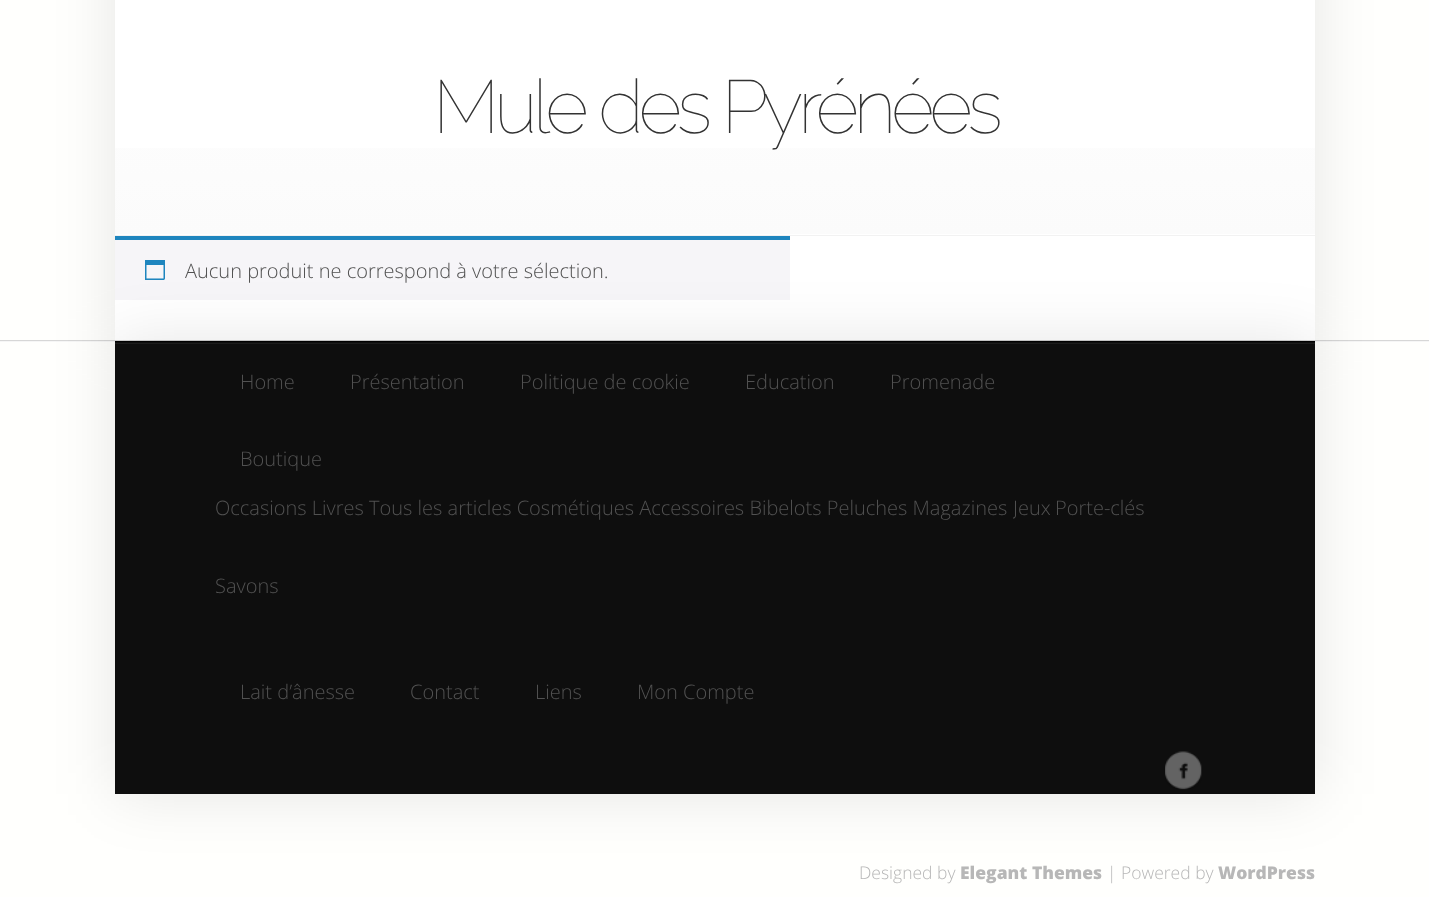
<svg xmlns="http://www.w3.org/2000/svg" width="1429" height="897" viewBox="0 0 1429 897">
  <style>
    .t1 { font: 100 75px Raleway; letter-spacing: -5px; fill: #333; }
    .t2 { font: 300 20px Open Sans; fill: #515151; }
    .t3 { font: 300 17.5px Open Sans; fill: #b7b7b7; }
    .t4 { font: 800 17.5px Open Sans; fill: #b7b7b7; }
  </style>
  <defs>
    <linearGradient id="g1" gradientUnits="userSpaceOnUse" x1="715" y1="2.5" x2="715" y2="235"><stop offset="0" stop-color="#fff"/><stop offset="1" stop-color="#fbfbfb"/></linearGradient>
    <clipPath id="clip1"><rect x="1013" y="498" width="37" height="77"/></clipPath>
  </defs>
  <rect width="100%" height="100%" fill="#fffffd"/>
  <rect x="0" y="341" width="1429" height="1" fill="#f6f6f6"/>
  <rect x="0" y="340" width="1429" height="1" fill="#d7d7d7"/>
  <rect x="115" y="-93" width="1200" height="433" fill="#0000001a" filter="blur(31px)"/>
  <rect x="115" y="0" width="1200" height="340" fill="#fff"/>
  <rect x="115" y="148" width="1200" height="86" fill="url(#g1)"/>
  <rect x="115" y="235" width="1200" height="1" fill="#f2f2f2"/>
  <text x="433" y="133" class="t1">Mule des Pyrénées</text>
  <rect x="115" y="240" width="675" height="60" fill="#f6f5f8"/>
  <rect x="115" y="236" width="675" height="4" fill="#1e85be"/>
  <image x="145" y="260" width="20" height="20" href="images/1.png"/>
  <text x="185" y="278" class="t2">Aucun produit ne correspond à votre sélection.</text>
  <rect x="115" y="341" width="1200" height="453" fill="#0000001a" filter="blur(31px)"/>
  <rect x="115" y="342" width="1200" height="452" fill="#0e0e0e"/>
  <rect x="115" y="343" width="1200" height="1" fill="#1c1c1c"/>
  <rect x="115" y="341" width="1200" height="1" fill="#000"/>
  <text x="240" y="389" class="t2">Home</text>
  <text x="350" y="389" class="t2">Présentation</text>
  <text x="520" y="389" class="t2">Politique de cookie</text>
  <text x="745" y="389" class="t2">Education</text>
  <text x="890" y="389" class="t2">Promenade</text>
  <text x="240" y="466" class="t2">Boutique</text>
  <text x="215" y="515" class="t2">Occasions Livres Tous les articles Cosmétiques Accessoires Bibelots Peluches Magazines</text>
  <g clip-path="url(#clip1)">
    <text x="1013" y="515" class="t2">Jeux</text>
  </g>
  <text x="1055" y="515" class="t2">Porte-clés</text>
  <text x="215" y="593" class="t2">Savons</text>
  <text x="240" y="699" class="t2">Lait d’ânesse</text>
  <text x="410" y="699" class="t2">Contact</text>
  <text x="535" y="699" class="t2">Liens</text>
  <text x="637" y="699" class="t2">Mon Compte</text>
  <image x="1165" y="751" width="37" height="39" href="images/2.png"/>
  <text x="859" y="879" class="t3">Designed by</text>
  <text x="960" y="879" class="t4">Elegant Themes</text>
  <text x="1107" y="879" class="t3">| Powered by</text>
  <text x="1218" y="879" class="t4">WordPress</text>
</svg>
